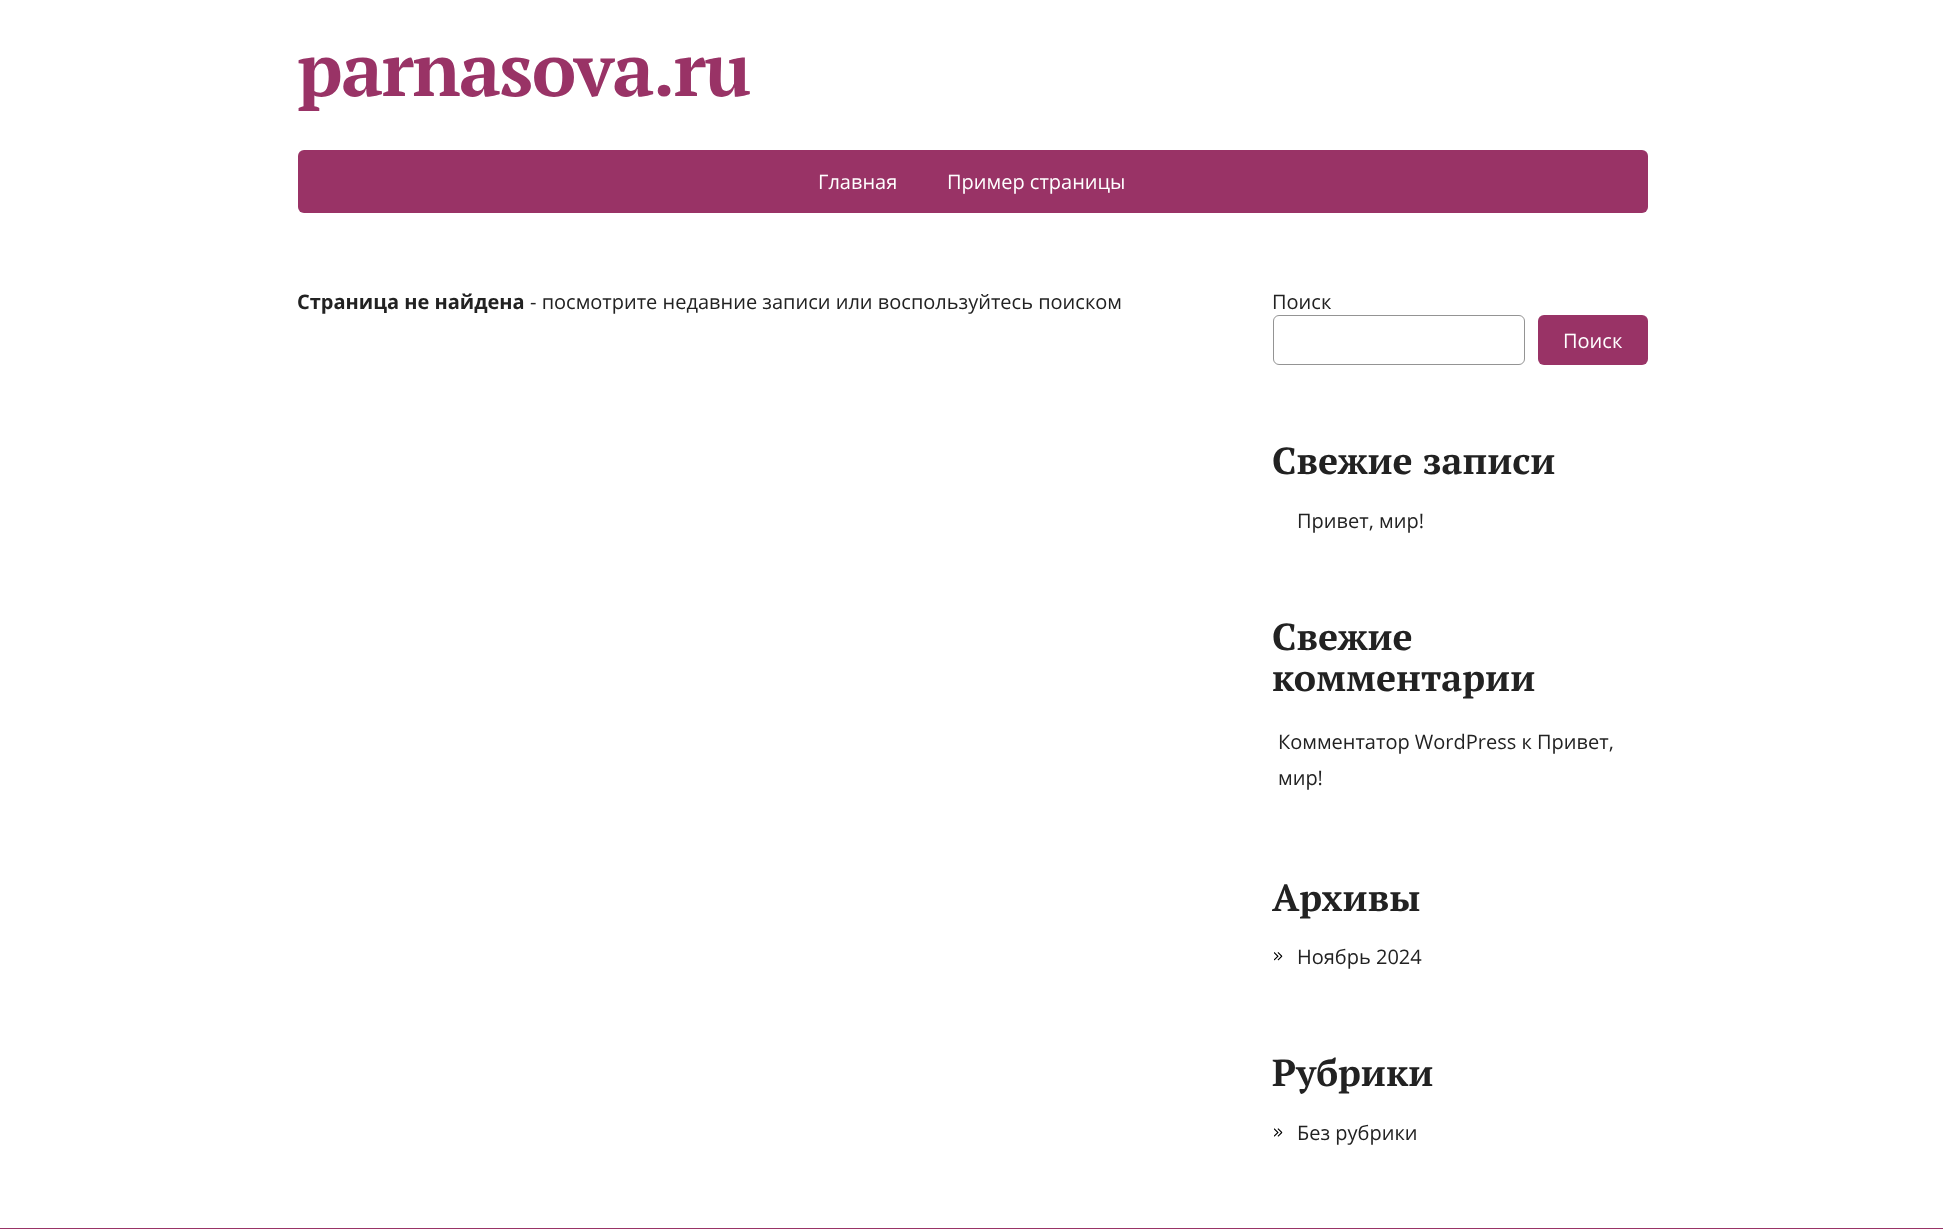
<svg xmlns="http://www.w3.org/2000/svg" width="1943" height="1229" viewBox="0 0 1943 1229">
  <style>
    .t1 { font: bold 75px PT Serif; letter-spacing: -1.5px; fill: #936; }
    .t2 { font: 20px Open Sans; fill: #fff; }
    .t3 { font: bold 20px Open Sans; fill: #222; }
    .t4 { font: 20px Open Sans; fill: #222; }
    .t5 { font: bold 37.5px PT Serif; fill: #222; }
  </style>
  <rect width="100%" height="100%" fill="#fff"/>
  <text x="297" y="96" class="t1">parnasova.ru</text>
  <rect x="298" y="150" width="1350" height="63" rx="6" fill="#936"/>
  <text x="818" y="189" class="t2">Главная</text>
  <text x="947" y="189" class="t2">Пример страницы</text>
  <text x="297" y="309" class="t3">Страница не найдена</text>
  <text x="530" y="309" class="t4">- посмотрите недавние записи или воспользуйтесь поиском</text>
  <text x="1272" y="309" class="t4">Поиск</text>
  <rect x="1273.5" y="315.5" width="251" height="49" rx="5.5" fill="none" stroke="#949494"/>
  <rect x="1538" y="315" width="110" height="50" rx="6" fill="#936"/>
  <text x="1563" y="348" class="t2">Поиск</text>
  <text x="1272" y="474" class="t5">Свежие записи</text>
  <text x="1297" y="528" class="t4">Привет, мир!</text>
  <text x="1272" y="650" class="t5">Свежие</text>
  <text x="1272" y="691" class="t5">комментарии</text>
  <text x="1278" y="749" class="t4">Комментатор WordPress к Привет,</text>
  <text x="1278" y="785" class="t4">мир!</text>
  <text x="1272" y="911" class="t5">Архивы</text>
  <image x="1274" y="952" width="9" height="9" href="images/1.png"/>
  <text x="1297" y="964" class="t4">Ноябрь 2024</text>
  <text x="1272" y="1086" class="t5">Рубрики</text>
  <image x="1274" y="1128" width="9" height="9" href="images/2.png"/>
  <text x="1297" y="1140" class="t4">Без рубрики</text>
  <rect x="0" y="1228" width="1943" height="1" fill="#936"/>
</svg>
